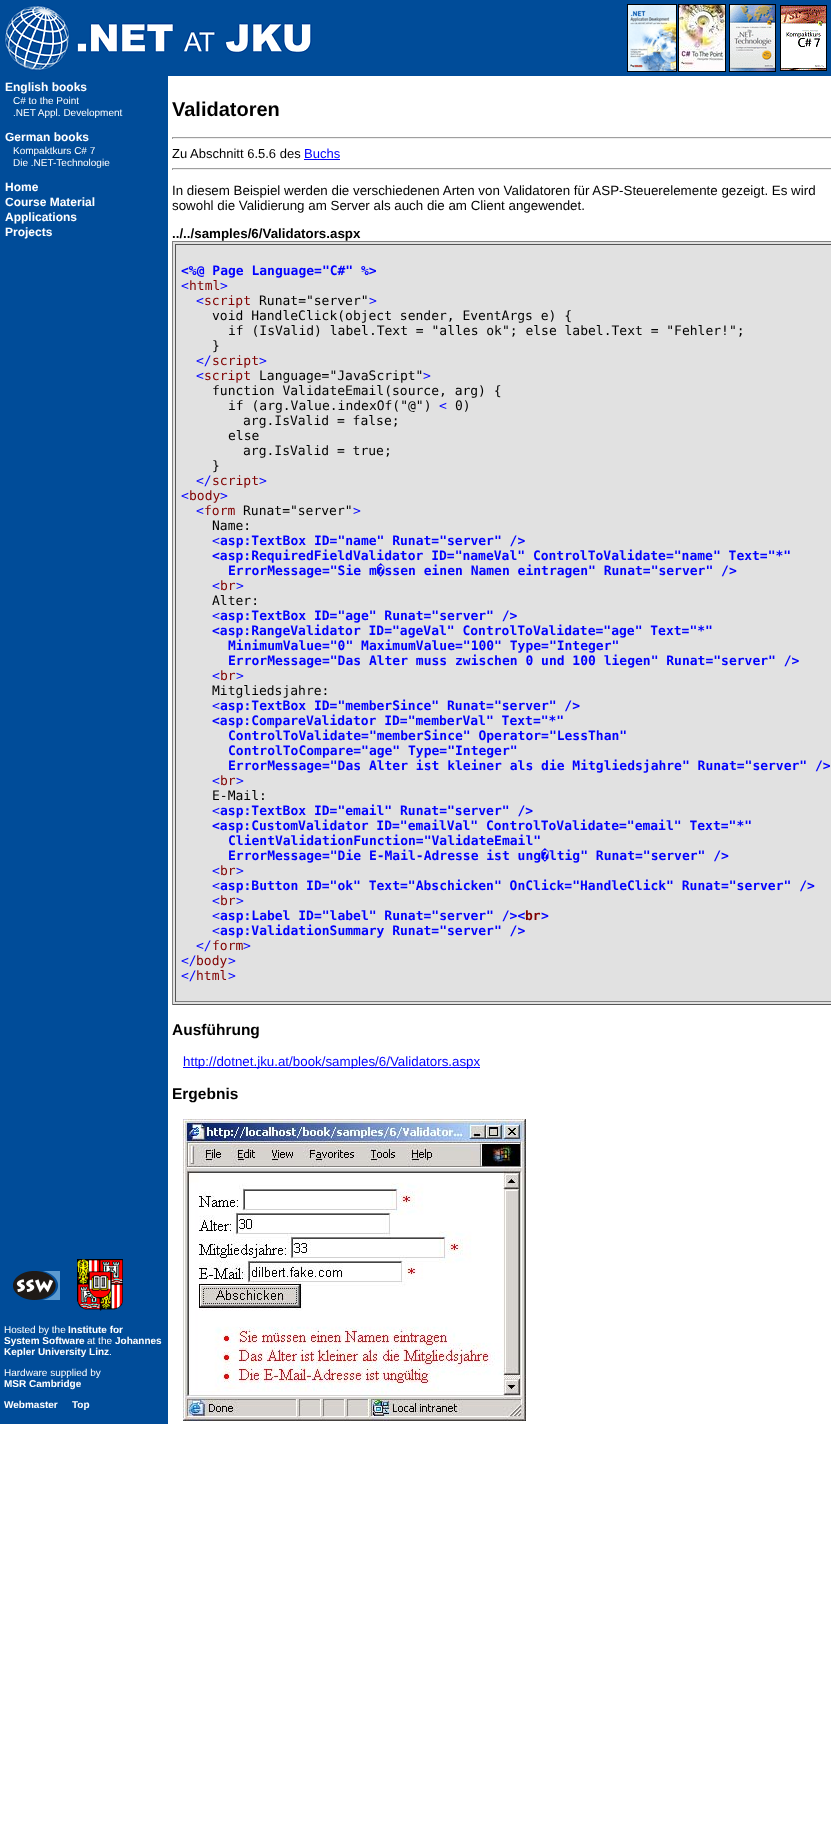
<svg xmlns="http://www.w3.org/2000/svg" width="831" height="1844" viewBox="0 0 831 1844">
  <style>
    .t1 { font: bold 12px Liberation Sans; fill: #fff; }
    .t2 { font: 10px Liberation Sans; fill: #fff; }
    .t3 { font: bold 20px Liberation Sans; fill: #000; }
    .t4 { font: 13px Liberation Sans; fill: #000; }
    .t5 { font: 13px Liberation Sans; fill: #00f; }
    .t6 { font: 13.35px Liberation Sans; fill: #000; }
    .t7 { font: bold 13.35px Liberation Sans; fill: #000; }
    .t8 { font: bold 13px DejaVu Sans Mono; fill: #00f; }
    .t9 { font: 13px DejaVu Sans Mono; fill: #00f; }
    .t10 { font: 13px DejaVu Sans Mono; fill: #800000; }
    .t11 { font: 13px DejaVu Sans Mono; fill: #000; }
    .t12 { font: bold 13px DejaVu Sans Mono; fill: #800000; }
    .t13 { font: bold 15.5px Liberation Sans; fill: #000; }
    .t14 { font: 13.35px Liberation Sans; fill: #00f; }
    .t15 { font: bold 10px Liberation Sans; fill: #fff; }
  </style>
  <rect width="100%" height="100%" fill="#fff"/>
  <rect x="0" y="0" width="831" height="76" fill="#004c99"/>
  <image x="4" y="5" width="308" height="66" href="images/1.png"/>
  <rect x="627.5" y="4.5" width="49" height="67" fill="none" stroke="#000"/>
  <image x="628" y="5" width="48" height="66" href="images/2.png"/>
  <rect x="678.5" y="4.5" width="47" height="67" fill="none" stroke="#000"/>
  <image x="679" y="5" width="46" height="66" href="images/3.png"/>
  <rect x="729.5" y="4.5" width="46" height="67" fill="none" stroke="#000"/>
  <image x="730" y="5" width="45" height="66" href="images/4.png"/>
  <rect x="780.5" y="5.5" width="46" height="65" fill="none" stroke="#000"/>
  <image x="781" y="6" width="45" height="64" href="images/5.png"/>
  <rect x="0" y="76" width="168" height="1348" fill="#004c99"/>
  <text x="5" y="91" class="t1">English books</text>
  <text x="13" y="104" class="t2">C# to the Point</text>
  <text x="13" y="116" class="t2">.NET Appl. Development</text>
  <text x="5" y="141" class="t1">German books</text>
  <text x="13" y="154" class="t2">Kompaktkurs C# 7</text>
  <text x="13" y="166" class="t2">Die .NET-Technologie</text>
  <text x="5" y="191" class="t1">Home</text>
  <text x="5" y="206" class="t1">Course Material</text>
  <text x="5" y="221" class="t1">Applications</text>
  <text x="5" y="236" class="t1">Projects</text>
  <text x="172" y="116" class="t3">Validatoren</text>
  <rect x="172" y="137" width="659" height="1" fill="#9f9f9f"/>
  <rect x="172" y="138" width="659" height="1" fill="#eee"/>
  <rect x="172" y="137" width="1" height="2" fill="#9f9f9f"/>
  <text x="172" y="158" class="t4">Zu Abschnitt 6.5.6 des</text>
  <text x="304" y="158" class="t5">Buchs</text>
  <rect x="304" y="159" width="36" height="1" fill="#00f"/>
  <rect x="172" y="168" width="659" height="1" fill="#9f9f9f"/>
  <rect x="172" y="169" width="659" height="1" fill="#eee"/>
  <rect x="172" y="168" width="1" height="2" fill="#9f9f9f"/>
  <text x="172" y="195" class="t6">In diesem Beispiel werden die verschiedenen Arten von Validatoren für ASP-Steuerelemente gezeigt. Es wird</text>
  <text x="172" y="210" class="t6">sowohl die Validierung am Server als auch die am Client angewendet.</text>
  <text x="172" y="238" class="t7">../../samples/6/Validators.aspx</text>
  <rect x="173" y="242" width="658" height="762" fill="#e1e1e1"/>
  <rect x="172" y="241" width="659" height="1" fill="#808080"/>
  <rect x="172" y="1004" width="659" height="1" fill="#555"/>
  <rect x="172" y="241" width="1" height="764" fill="#808080"/>
  <rect x="175" y="244" width="656" height="1" fill="#555"/>
  <rect x="175" y="1001" width="656" height="1" fill="#808080"/>
  <rect x="175" y="244" width="1" height="758" fill="#555"/>
  <text x="181" y="275" class="t8">&lt;%@ Page Language="C#" %&gt;</text>
  <text x="181" y="290" class="t9">&lt;</text>
  <text x="189" y="290" class="t10">html</text>
  <text x="220" y="290" class="t9">&gt;</text>
  <text x="196" y="305" class="t9">&lt;</text>
  <text x="204" y="305" class="t10">script</text>
  <text x="259" y="305" class="t11">Runat="server"</text>
  <text x="369" y="305" class="t9">&gt;</text>
  <text x="212" y="320" class="t11">void HandleClick(object sender, EventArgs e) {</text>
  <text x="228" y="335" class="t11">if (IsValid) label.Text = "alles ok"; else label.Text = "Fehler!";</text>
  <text x="212" y="350" class="t11">}</text>
  <text x="196" y="365" class="t9">&lt;/</text>
  <text x="212" y="365" class="t10">script</text>
  <text x="259" y="365" class="t9">&gt;</text>
  <text x="196" y="380" class="t9">&lt;</text>
  <text x="204" y="380" class="t10">script</text>
  <text x="259" y="380" class="t11">Language="JavaScript"</text>
  <text x="423" y="380" class="t9">&gt;</text>
  <text x="212" y="395" class="t11">function ValidateEmail(source, arg) {</text>
  <text x="228" y="410" class="t11">if (arg.Value.indexOf("@")</text>
  <text x="439" y="410" class="t9">&lt;</text>
  <text x="455" y="410" class="t11">0)</text>
  <text x="243" y="425" class="t11">arg.IsValid = false;</text>
  <text x="228" y="440" class="t11">else</text>
  <text x="243" y="455" class="t11">arg.IsValid = true;</text>
  <text x="212" y="470" class="t11">}</text>
  <text x="196" y="485" class="t9">&lt;/</text>
  <text x="212" y="485" class="t10">script</text>
  <text x="259" y="485" class="t9">&gt;</text>
  <text x="181" y="500" class="t9">&lt;</text>
  <text x="189" y="500" class="t10">body</text>
  <text x="220" y="500" class="t9">&gt;</text>
  <text x="196" y="515" class="t9">&lt;</text>
  <text x="204" y="515" class="t10">form</text>
  <text x="243" y="515" class="t11">Runat="server"</text>
  <text x="353" y="515" class="t9">&gt;</text>
  <text x="212" y="530" class="t11">Name:</text>
  <text x="212" y="545" class="t9">&lt;</text>
  <text x="220" y="545" class="t8">asp:TextBox ID="name" Runat="server" /&gt;</text>
  <text x="212" y="560" class="t8">&lt;asp:RequiredFieldValidator ID="nameVal" ControlToValidate="name" Text="*"</text>
  <text x="228" y="575" class="t8">ErrorMessage="Sie m�ssen einen Namen eintragen" Runat="server" /&gt;</text>
  <text x="212" y="590" class="t9">&lt;</text>
  <text x="220" y="590" class="t10">br</text>
  <text x="236" y="590" class="t9">&gt;</text>
  <text x="212" y="605" class="t11">Alter:</text>
  <text x="212" y="620" class="t9">&lt;</text>
  <text x="220" y="620" class="t8">asp:TextBox ID="age" Runat="server" /&gt;</text>
  <text x="212" y="635" class="t8">&lt;asp:RangeValidator ID="ageVal" ControlToValidate="age" Text="*"</text>
  <text x="228" y="650" class="t8">MinimumValue="0" MaximumValue="100" Type="Integer"</text>
  <text x="228" y="665" class="t8">ErrorMessage="Das Alter muss zwischen 0 und 100 liegen" Runat="server" /&gt;</text>
  <text x="212" y="680" class="t9">&lt;</text>
  <text x="220" y="680" class="t10">br</text>
  <text x="236" y="680" class="t9">&gt;</text>
  <text x="212" y="695" class="t11">Mitgliedsjahre:</text>
  <text x="212" y="710" class="t9">&lt;</text>
  <text x="220" y="710" class="t8">asp:TextBox ID="memberSince" Runat="server" /&gt;</text>
  <text x="212" y="725" class="t8">&lt;asp:CompareValidator ID="memberVal" Text="*"</text>
  <text x="228" y="740" class="t8">ControlToValidate="memberSince" Operator="LessThan"</text>
  <text x="228" y="755" class="t8">ControlToCompare="age" Type="Integer"</text>
  <text x="228" y="770" class="t8">ErrorMessage="Das Alter ist kleiner als die Mitgliedsjahre" Runat="server" /&gt;</text>
  <text x="212" y="785" class="t9">&lt;</text>
  <text x="220" y="785" class="t10">br</text>
  <text x="236" y="785" class="t9">&gt;</text>
  <text x="212" y="800" class="t11">E-Mail:</text>
  <text x="212" y="815" class="t9">&lt;</text>
  <text x="220" y="815" class="t8">asp:TextBox ID="email" Runat="server" /&gt;</text>
  <text x="212" y="830" class="t8">&lt;asp:CustomValidator ID="emailVal" ControlToValidate="email" Text="*"</text>
  <text x="228" y="845" class="t8">ClientValidationFunction="ValidateEmail"</text>
  <text x="228" y="860" class="t8">ErrorMessage="Die E-Mail-Adresse ist ung�ltig" Runat="server" /&gt;</text>
  <text x="212" y="875" class="t9">&lt;</text>
  <text x="220" y="875" class="t10">br</text>
  <text x="236" y="875" class="t9">&gt;</text>
  <text x="212" y="890" class="t9">&lt;</text>
  <text x="220" y="890" class="t8">asp:Button ID="ok" Text="Abschicken" OnClick="HandleClick" Runat="server" /&gt;</text>
  <text x="212" y="905" class="t9">&lt;</text>
  <text x="220" y="905" class="t10">br</text>
  <text x="236" y="905" class="t9">&gt;</text>
  <text x="212" y="920" class="t9">&lt;</text>
  <text x="220" y="920" class="t8">asp:Label ID="label" Runat="server" /&gt;&lt;</text>
  <text x="525" y="920" class="t12">br</text>
  <text x="541" y="920" class="t8">&gt;</text>
  <text x="212" y="935" class="t9">&lt;</text>
  <text x="220" y="935" class="t8">asp:ValidationSummary Runat="server" /&gt;</text>
  <text x="196" y="950" class="t9">&lt;/</text>
  <text x="212" y="950" class="t10">form</text>
  <text x="243" y="950" class="t9">&gt;</text>
  <text x="181" y="965" class="t9">&lt;/</text>
  <text x="196" y="965" class="t10">body</text>
  <text x="228" y="965" class="t9">&gt;</text>
  <text x="181" y="980" class="t9">&lt;/</text>
  <text x="196" y="980" class="t10">html</text>
  <text x="228" y="980" class="t9">&gt;</text>
  <text x="172" y="1035" class="t13">Ausführung</text>
  <rect x="183" y="1067" width="297" height="1" fill="#00f"/>
  <text x="183" y="1066" class="t14">http://dotnet.jku.at/book/samples/6/Validators.aspx</text>
  <text x="172" y="1099" class="t13">Ergebnis</text>
  <image x="183" y="1119" width="343" height="302" href="images/6.png"/>
  <image x="13" y="1271" width="47" height="29" href="images/7.png"/>
  <image x="77" y="1259" width="46" height="52" href="images/8.png"/>
  <text x="4" y="1333" class="t2">Hosted by the</text>
  <text x="68" y="1333" class="t15">Institute for</text>
  <text x="4" y="1344" class="t15">System Software</text>
  <text x="87" y="1344" class="t2">at the</text>
  <text x="115" y="1344" class="t15">Johannes</text>
  <text x="4" y="1355" class="t15">Kepler University Linz</text>
  <text x="109" y="1355" class="t2">.</text>
  <text x="4" y="1376" class="t2">Hardware supplied by</text>
  <text x="4" y="1387" class="t15">MSR Cambridge</text>
  <text x="4" y="1408" class="t15">Webmaster</text>
  <text x="72" y="1408" class="t15">Top</text>
</svg>
